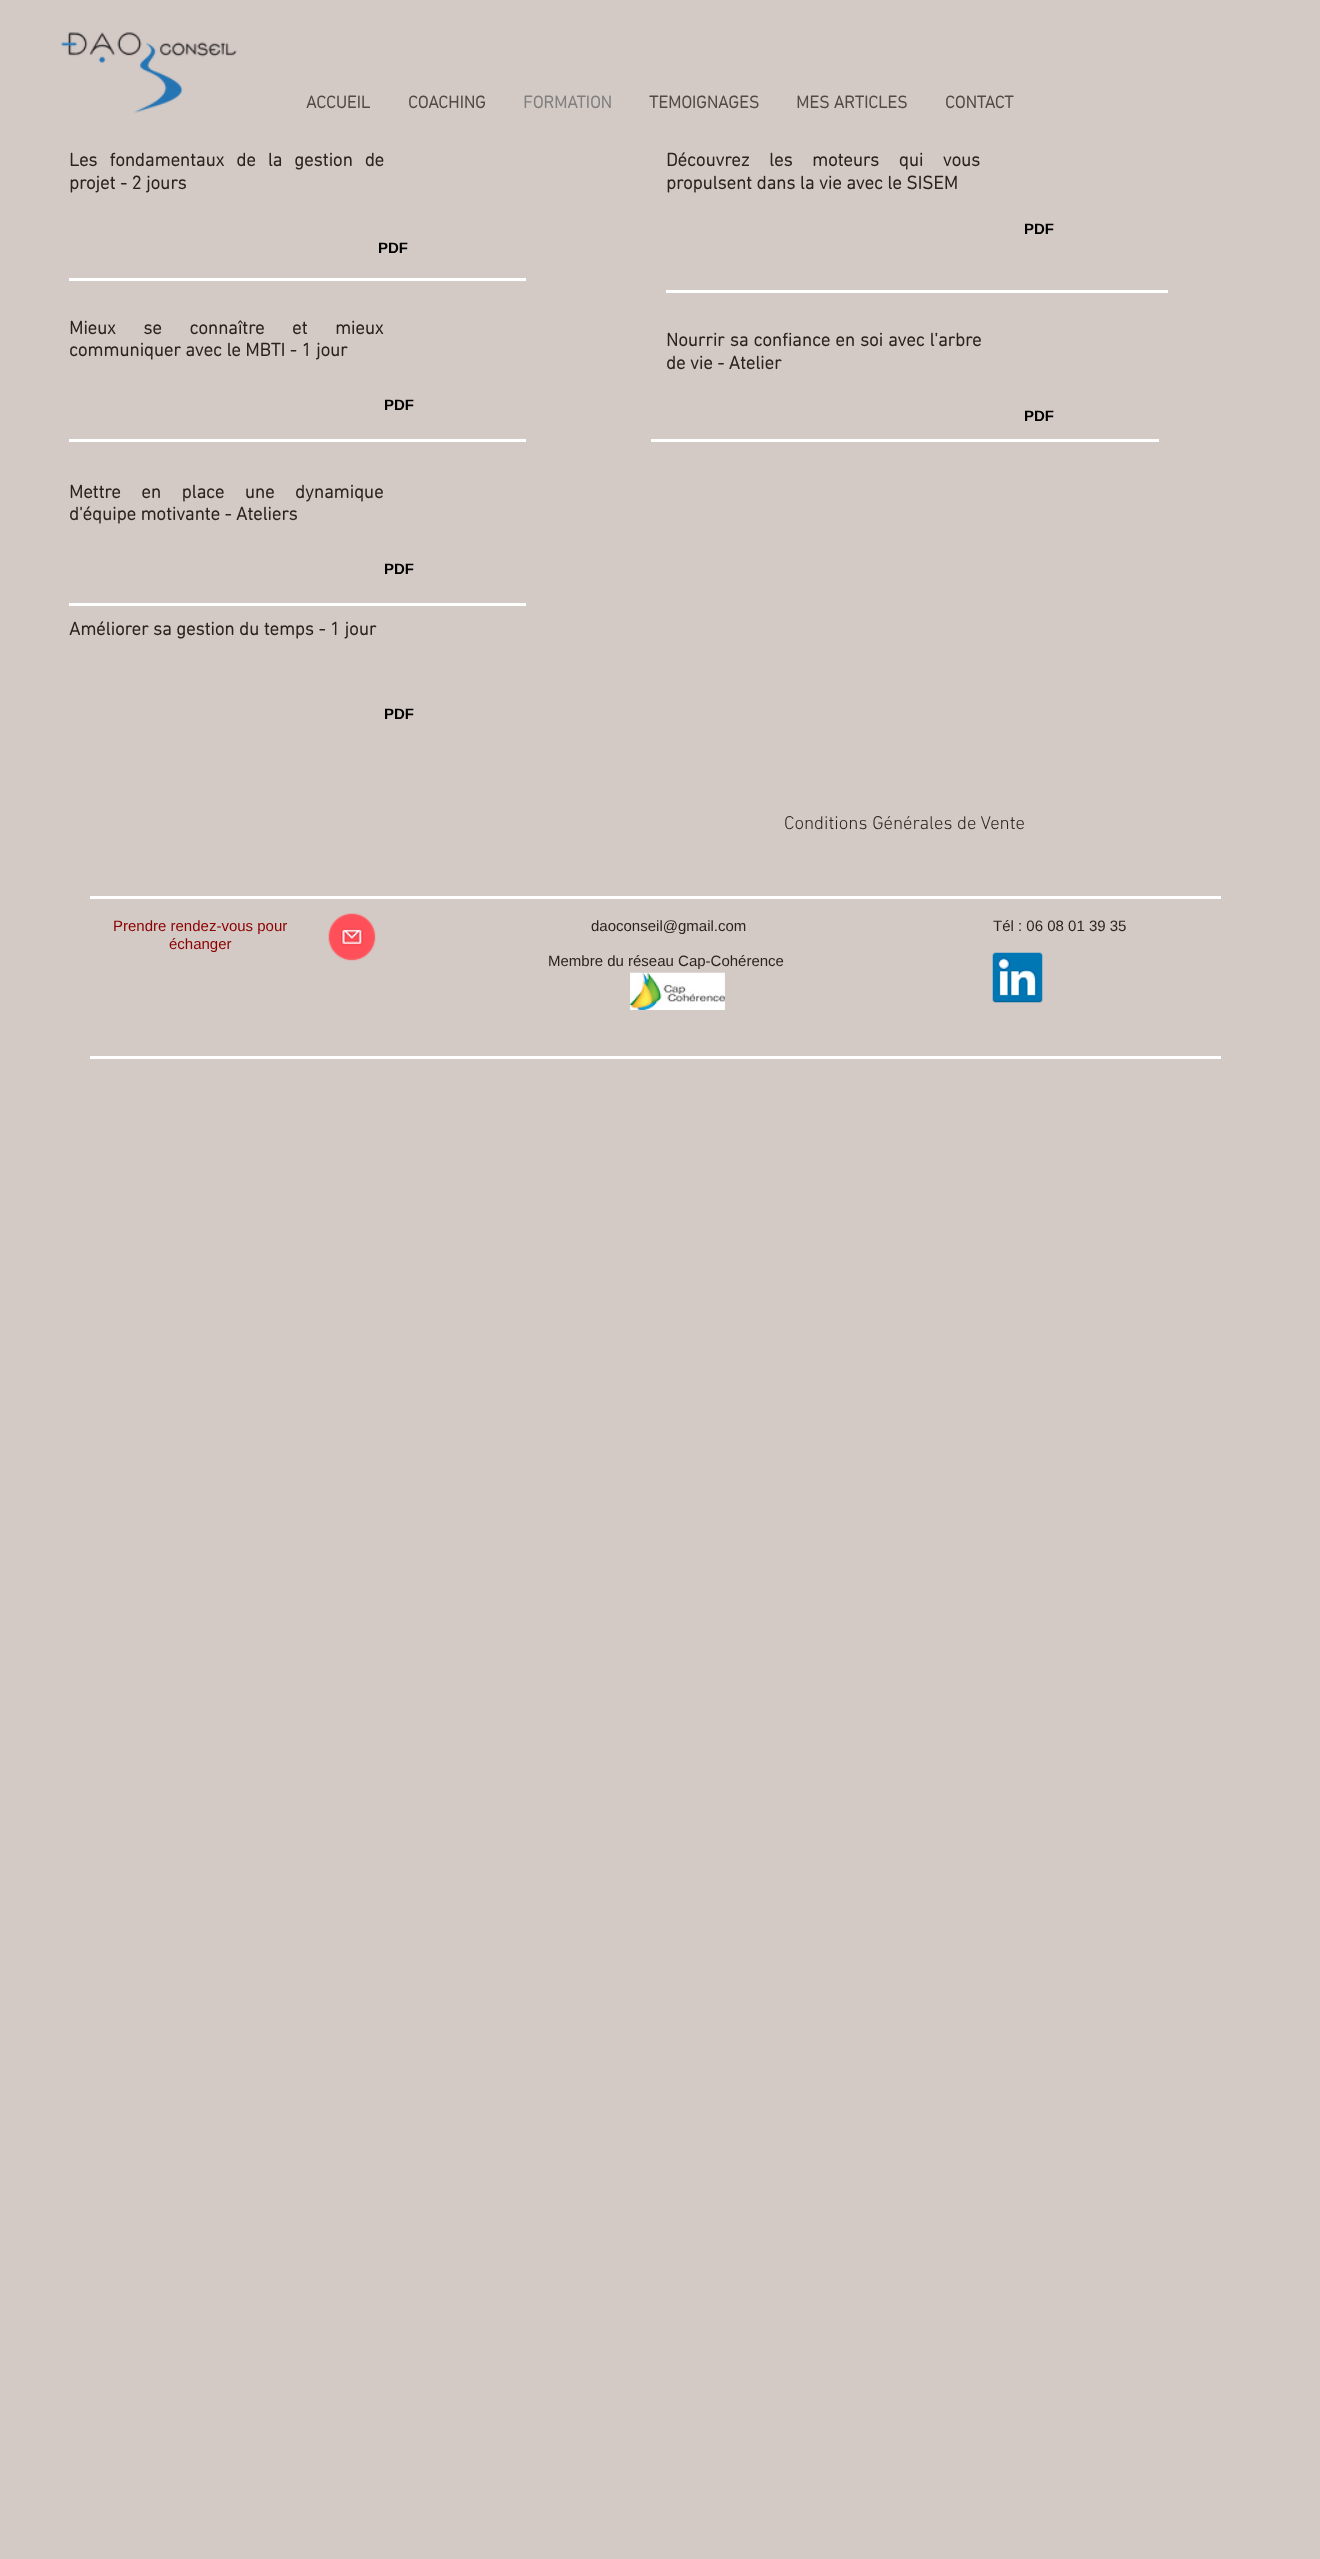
<svg xmlns="http://www.w3.org/2000/svg" width="1320" height="2559" viewBox="0 0 1320 2559">
  <style>
    .t1 { font: bold 17.5px 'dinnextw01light'; fill: #544943; }
    .t2 { font: bold 17.5px 'dinnextw01light'; fill: #7f7f7f; }
    .t3 { font: bold 18.75px 'dinnextw01light'; fill: #2a2421; }
    .t4 { font: bold 15px Liberation Sans; fill: #000; }
    .t5 { font: 300 18.75px 'dinnextw01light'; fill: #2a2421; }
    .t6 { font: 15px Liberation Sans; fill: #8b0000; }
    .t7 { font: 15px Liberation Sans; fill: #2a2421; }
  </style>
  <rect width="100%" height="100%" fill="#d4cac5"/>
  <image x="61" y="32" width="176" height="81" href="images/1.png"/>
  <text x="306" y="108" class="t1">ACCUEIL</text>
  <text x="408" y="108" class="t1">COACHING</text>
  <text x="523" y="108" class="t2">FORMATION</text>
  <text x="649" y="108" class="t1">TEMOIGNAGES</text>
  <text x="796" y="108" class="t1">MES ARTICLES</text>
  <text x="945" y="108" class="t1">CONTACT</text>
  <text x="69" y="166" word-spacing="7.5" class="t3">Les fondamentaux de la gestion de</text>
  <text x="69" y="189" class="t3">projet - 2 jours</text>
  <text x="666" y="166" word-spacing="15" class="t3">Découvrez les moteurs qui vous</text>
  <text x="666" y="189" class="t3">propulsent dans la vie avec le SISEM</text>
  <text x="1024" y="234" class="t4">PDF</text>
  <text x="378" y="253" class="t4">PDF</text>
  <rect x="69" y="278" width="457" height="3" fill="#fff"/>
  <rect x="666" y="290" width="502" height="3" fill="#fff"/>
  <text x="69" y="334" word-spacing="23" class="t3">Mieux se connaître et mieux</text>
  <text x="69" y="356" class="t3">communiquer avec le MBTI - 1 jour</text>
  <text x="666" y="346" word-spacing="0.5" class="t3">Nourrir sa confiance en soi avec l'arbre</text>
  <text x="666" y="369" class="t3">de vie - Atelier</text>
  <text x="384" y="410" class="t4">PDF</text>
  <text x="1024" y="421" class="t4">PDF</text>
  <rect x="69" y="439" width="457" height="3" fill="#fff"/>
  <rect x="651" y="439" width="508" height="3" fill="#fff"/>
  <text x="69" y="498" word-spacing="16" class="t3">Mettre en place une dynamique</text>
  <text x="69" y="520" class="t3">d'équipe motivante - Ateliers</text>
  <text x="384" y="574" class="t4">PDF</text>
  <rect x="69" y="603" width="457" height="3" fill="#fff"/>
  <text x="69" y="635" class="t3">Améliorer sa gestion du temps - 1 jour</text>
  <text x="384" y="719" class="t4">PDF</text>
  <text x="784" y="829" class="t5">Conditions Générales de Vente</text>
  <rect x="90" y="896" width="1131" height="3" fill="#fff"/>
  <text x="113" y="931" class="t6">Prendre rendez-vous pour</text>
  <text x="169" y="949" class="t6">échanger</text>
  <image x="328" y="913" width="48" height="48" href="images/2.png"/>
  <text x="591" y="931" class="t7">daoconseil@gmail.com</text>
  <text x="993" y="931" class="t7">Tél : 06 08 01 39 35</text>
  <text x="548" y="966" class="t7">Membre du réseau Cap-Cohérence</text>
  <image x="992" y="952" width="51" height="51" href="images/3.png"/>
  <image x="630" y="972" width="95" height="38" href="images/4.png"/>
  <rect x="90" y="1056" width="1131" height="3" fill="#fff"/>
</svg>
